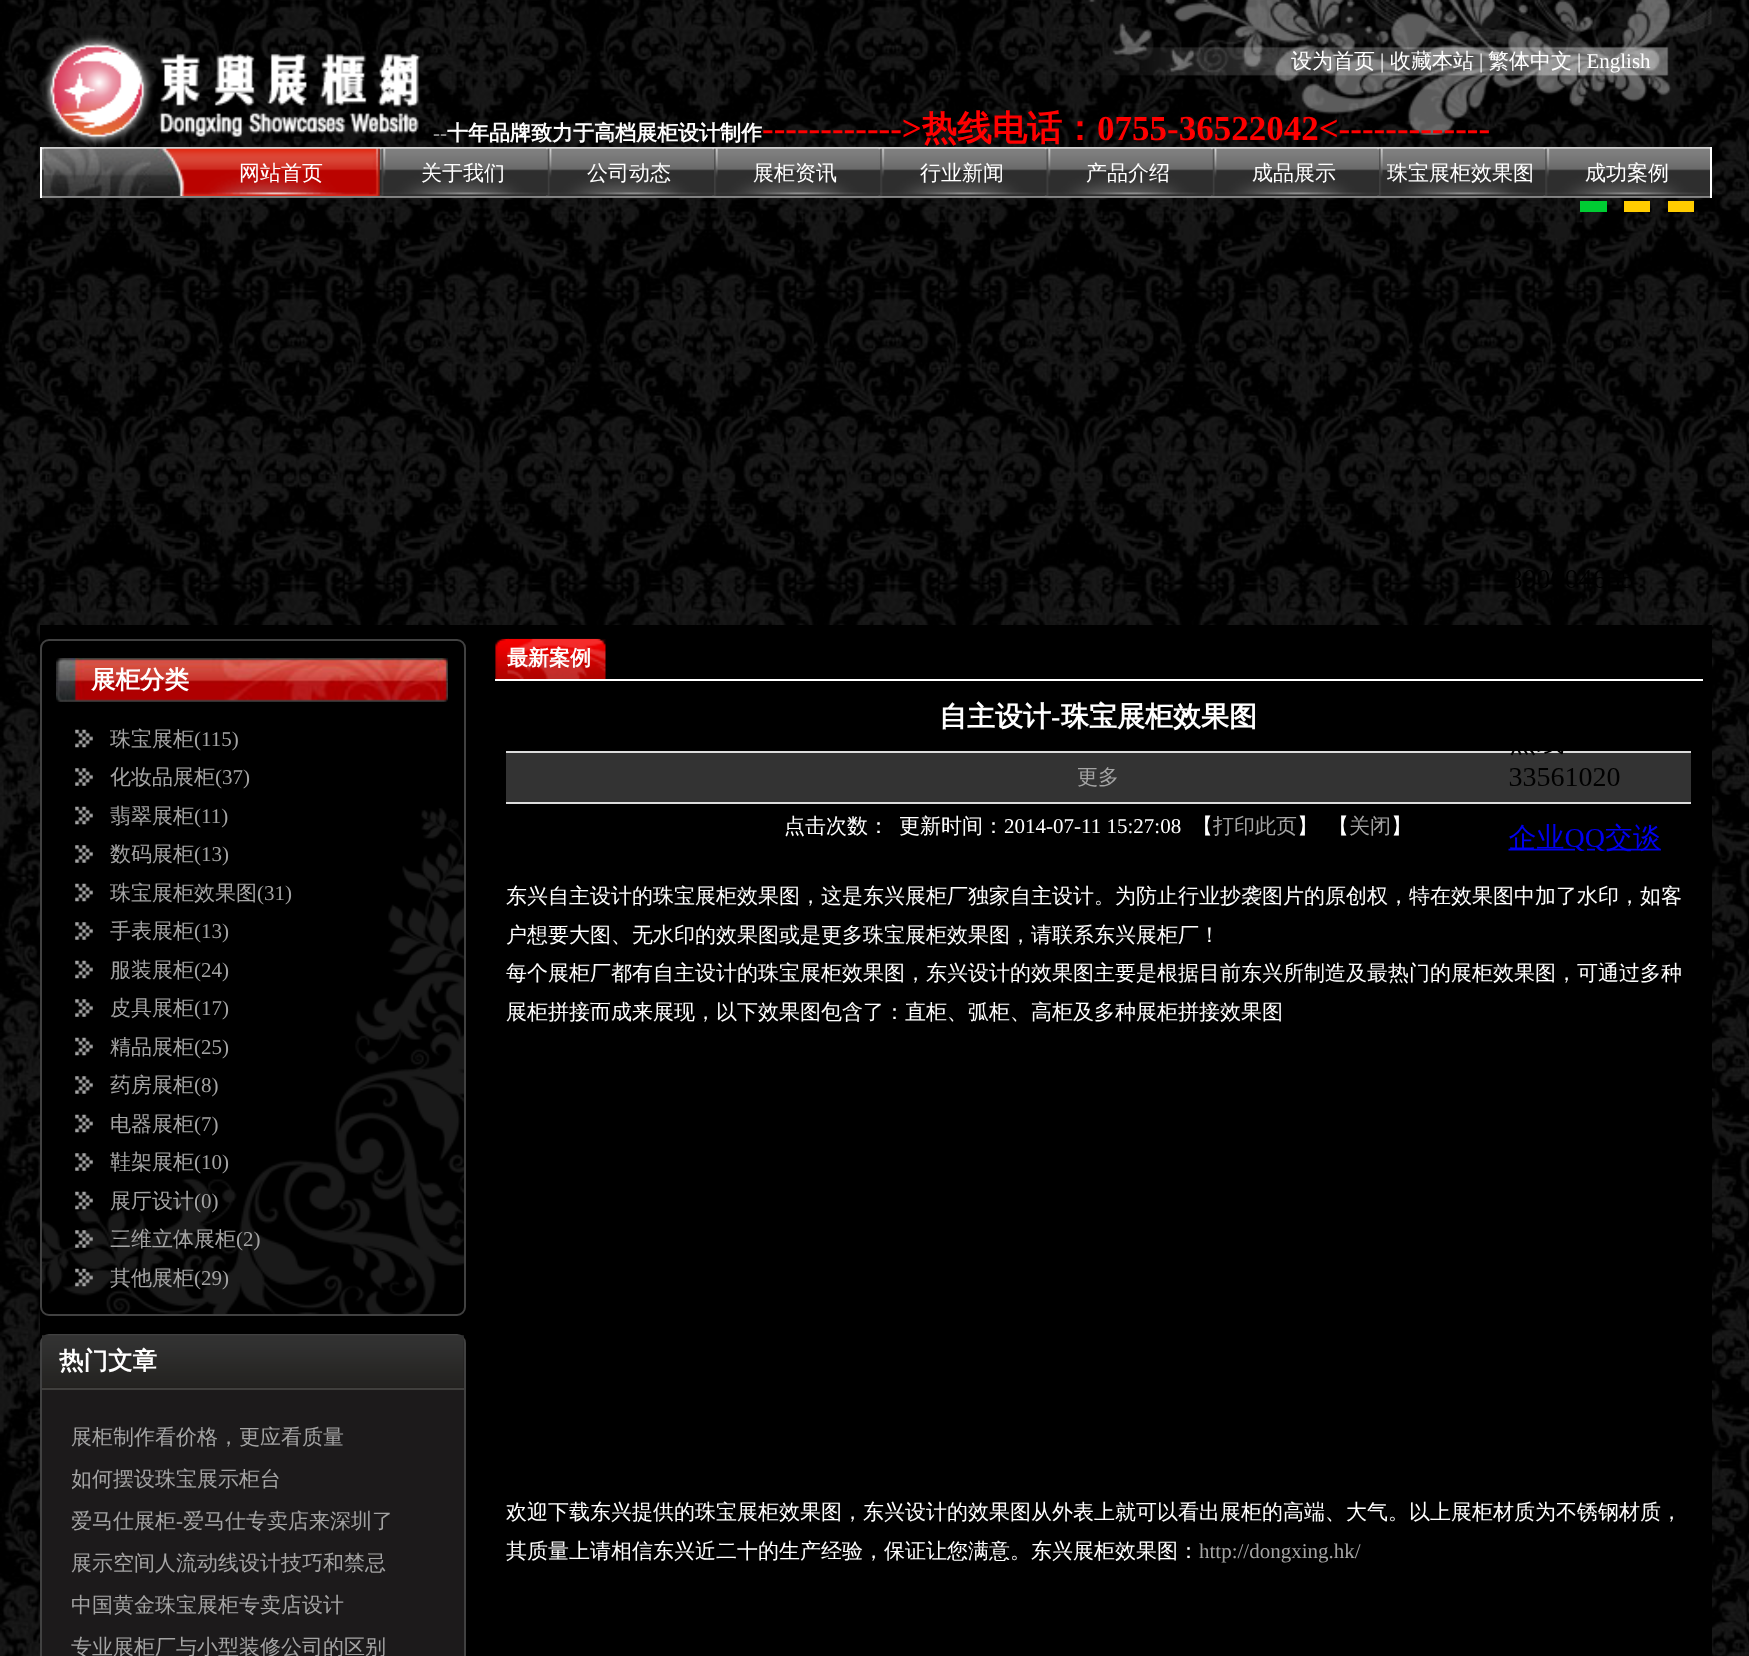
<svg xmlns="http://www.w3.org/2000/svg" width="1749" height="1656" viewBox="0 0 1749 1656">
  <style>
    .t1 { font: 500 21px WenQuanYi Zen Hei; fill: #fff; }
    .t2 { font: 21px Liberation Serif; fill: #fff; }
    .t3 { font: 21px Liberation Serif; fill: #a4a4a4; }
    .t4 { font: bold 21px WenQuanYi Zen Hei; fill: #fff; }
    .t5 { font: bold 35px Liberation Serif; fill: #f00; }
    .t6 { font: bold 35px WenQuanYi Zen Hei; fill: #f00; }
    .t7 { font: bold 24.5px WenQuanYi Zen Hei; fill: #fff; }
    .t8 { font: 500 21px WenQuanYi Zen Hei; fill: #a4a4a4; }
    .t9 { font: bold 28px WenQuanYi Zen Hei; fill: #fff; }
    .t10 { font: bold 28px Liberation Serif; fill: #fff; }
  </style>
  <defs>
    <clipPath id="clip1"><rect x="72" y="1458" width="392" height="42"/></clipPath>
  </defs>
  <rect width="100%" height="100%" fill="#fff"/>
  <image x="0" y="0" width="1749" height="1656" href="images/1.png"/>
  <image x="1088" y="0" width="624" height="135" href="images/2.png"/>
  <image x="42" y="35" width="378" height="111" href="images/3.png"/>
  <text x="1291" y="68" class="t1">设为首页</text>
  <text x="1380" y="68" class="t2">|</text>
  <text x="1390" y="68" class="t1">收藏本站</text>
  <text x="1479" y="68" class="t2">|</text>
  <text x="1488" y="68" class="t1">繁体中文</text>
  <text x="1577" y="68" class="t2">| English</text>
  <text x="433" y="140" class="t3">--</text>
  <text x="447" y="140" class="t4">十年品牌致力于高档展柜设计制作</text>
  <text x="762" y="140" class="t5">------------&gt;</text>
  <text x="922" y="140" class="t6">热线电话：</text>
  <text x="1097" y="140" class="t5">0755-36522042&lt;-------------</text>
  <image x="42" y="147" width="1668" height="51" href="images/4.png"/>
  <rect x="1710" y="147" width="2" height="51" fill="#fff"/>
  <rect x="40" y="147" width="2" height="51" fill="#fff"/>
  <image x="43" y="148" width="337" height="48" href="images/5.png"/>
  <text x="239" y="180" class="t1">网站首页</text>
  <image x="381" y="148" width="165" height="48" href="images/6.png"/>
  <text x="421" y="180" class="t1">关于我们</text>
  <image x="547" y="148" width="166" height="48" href="images/7.png"/>
  <text x="587" y="180" class="t1">公司动态</text>
  <image x="714" y="148" width="165" height="48" href="images/8.png"/>
  <text x="753" y="180" class="t1">展柜资讯</text>
  <image x="880" y="148" width="165" height="48" href="images/9.png"/>
  <text x="920" y="180" class="t1">行业新闻</text>
  <image x="1046" y="148" width="165" height="48" href="images/10.png"/>
  <text x="1086" y="180" class="t1">产品介绍</text>
  <image x="1212" y="148" width="166" height="48" href="images/7.png"/>
  <text x="1252" y="180" class="t1">成品展示</text>
  <image x="1379" y="148" width="165" height="48" href="images/8.png"/>
  <text x="1387" y="180" class="t1">珠宝展柜效果图</text>
  <image x="1545" y="148" width="165" height="48" href="images/9.png"/>
  <text x="1585" y="180" class="t1">成功案例</text>
  <rect x="1580" y="201" width="27" height="11" fill="#0c3"/>
  <rect x="1624" y="201" width="26" height="11" fill="#fc0"/>
  <rect x="1668" y="201" width="26" height="11" fill="#fc0"/>
  <rect x="40" y="625" width="1672" height="1031" fill="#000"/>
  <image x="42" y="808" width="422" height="506" href="images/11.png"/>
  <rect x="41" y="640" width="424" height="675" rx="8" fill="none" stroke="#414141" stroke-width="2"/>
  <image x="56" y="658" width="392" height="44" href="images/12.png"/>
  <text x="91" y="688" class="t7">展柜分类</text>
  <image x="75" y="729" width="18" height="19" href="images/13.png"/>
  <text x="110" y="746" class="t8">珠宝展柜</text>
  <text x="194" y="746" class="t3">(115)</text>
  <image x="75" y="768" width="18" height="18" href="images/14.png"/>
  <text x="110" y="784" class="t8">化妆品展柜</text>
  <text x="215" y="784" class="t3">(37)</text>
  <image x="75" y="806" width="18" height="19" href="images/13.png"/>
  <text x="110" y="823" class="t8">翡翠展柜</text>
  <text x="194" y="823" class="t3">(11)</text>
  <image x="75" y="845" width="18" height="18" href="images/14.png"/>
  <text x="110" y="861" class="t8">数码展柜</text>
  <text x="194" y="861" class="t3">(13)</text>
  <image x="75" y="883" width="18" height="19" href="images/13.png"/>
  <text x="110" y="900" class="t8">珠宝展柜效果图</text>
  <text x="257" y="900" class="t3">(31)</text>
  <image x="75" y="922" width="18" height="18" href="images/14.png"/>
  <text x="110" y="938" class="t8">手表展柜</text>
  <text x="194" y="938" class="t3">(13)</text>
  <image x="75" y="960" width="18" height="19" href="images/13.png"/>
  <text x="110" y="977" class="t8">服装展柜</text>
  <text x="194" y="977" class="t3">(24)</text>
  <image x="75" y="999" width="18" height="18" href="images/14.png"/>
  <text x="110" y="1015" class="t8">皮具展柜</text>
  <text x="194" y="1015" class="t3">(17)</text>
  <image x="75" y="1037" width="18" height="19" href="images/13.png"/>
  <text x="110" y="1054" class="t8">精品展柜</text>
  <text x="194" y="1054" class="t3">(25)</text>
  <image x="75" y="1076" width="18" height="18" href="images/14.png"/>
  <text x="110" y="1092" class="t8">药房展柜</text>
  <text x="194" y="1092" class="t3">(8)</text>
  <image x="75" y="1114" width="18" height="19" href="images/13.png"/>
  <text x="110" y="1131" class="t8">电器展柜</text>
  <text x="194" y="1131" class="t3">(7)</text>
  <image x="75" y="1153" width="18" height="18" href="images/14.png"/>
  <text x="110" y="1169" class="t8">鞋架展柜</text>
  <text x="194" y="1169" class="t3">(10)</text>
  <image x="75" y="1191" width="18" height="19" href="images/15.png"/>
  <text x="110" y="1208" class="t8">展厅设计</text>
  <text x="194" y="1208" class="t3">(0)</text>
  <image x="75" y="1230" width="18" height="18" href="images/16.png"/>
  <text x="110" y="1246" class="t8">三维立体展柜</text>
  <text x="236" y="1246" class="t3">(2)</text>
  <image x="75" y="1268" width="18" height="19" href="images/17.png"/>
  <text x="110" y="1285" class="t8">其他展柜</text>
  <text x="194" y="1285" class="t3">(29)</text>
  <path d="M49 1335H457C461 1335 464 1338 464 1342V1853H42V1342C42 1338 45 1335 49 1335Z" fill="#1c1a1b"/>
  <rect x="41" y="1335" width="424" height="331" rx="8" fill="none" stroke="#414141" stroke-width="2"/>
  <image x="42" y="1335" width="422" height="53" href="images/18.png"/>
  <rect x="42" y="1388" width="422" height="2" fill="#403f3d"/>
  <text x="59" y="1369" class="t7">热门文章</text>
  <text x="71" y="1444" class="t8">展柜制作看价格，更应看质量</text>
  <g clip-path="url(#clip1)">
    <text x="71" y="1486" class="t8">如何摆设珠宝展示柜台</text>
  </g>
  <text x="71" y="1528" class="t8">爱马仕展柜</text>
  <text x="176" y="1528" class="t3">-</text>
  <text x="183" y="1528" class="t8">爱马仕专卖店来深圳了</text>
  <text x="71" y="1570" class="t8">展示空间人流动线设计技巧和禁忌</text>
  <text x="71" y="1612" class="t8">中国黄金珠宝展柜专卖店设计</text>
  <text x="71" y="1654" class="t8">专业展柜厂与小型装修公司的区别</text>
  <image x="495" y="638" width="14" height="41" href="images/19.png"/>
  <rect x="495" y="679" width="1208" height="2" fill="#fff"/>
  <image x="507" y="638" width="99" height="41" href="images/20.png"/>
  <text x="507" y="665" class="t4">最新案例</text>
  <text x="939" y="726" class="t9">自主设计</text>
  <text x="1051" y="726" class="t10">-</text>
  <text x="1061" y="726" class="t9">珠宝展柜效果图</text>
  <rect x="506" y="753" width="1185" height="49" fill="#333"/>
  <rect x="506" y="751" width="1185" height="2" fill="#dcdcdc"/>
  <rect x="506" y="802" width="1185" height="2" fill="#dcdcdc"/>
  <text x="1077" y="784" class="t8">更多</text>
  <text x="784" y="833" class="t1">点击次数：</text>
  <text x="899" y="833" class="t1">更新时间：</text>
  <text x="1004" y="833" class="t2">2014-07-11 15:27:08</text>
  <text x="1192" y="833" class="t1">【</text>
  <text x="1213" y="833" class="t8">打印此页</text>
  <text x="1297" y="833" class="t1">】</text>
  <text x="1328" y="833" class="t1">【</text>
  <text x="1349" y="833" class="t8">关闭</text>
  <text x="1391" y="833" class="t1">】</text>
  <text x="506" y="903" class="t1">东兴自主设计的珠宝展柜效果图，这是东兴展柜厂独家自主设计。为防止行业抄袭图片的原创权，特在效果图中加了水印，如客</text>
  <text x="506" y="942" class="t1">户想要大图、无水印的效果图或是更多珠宝展柜效果图，请联系东兴展柜厂！</text>
  <text x="506" y="980" class="t1">每个展柜厂都有自主设计的珠宝展柜效果图，东兴设计的效果图主要是根据目前东兴所制造及最热门的展柜效果图，可通过多种</text>
  <text x="506" y="1019" class="t1">展柜拼接而成来展现，以下效果图包含了：直柜、弧柜、高柜及多种展柜拼接效果图</text>
  <text x="506" y="1519" class="t1">欢迎下载东兴提供的珠宝展柜效果图，东兴设计的效果图从外表上就可以看出展柜的高端、大气。以上展柜材质为不锈钢材质，</text>
  <text x="506" y="1558" class="t1">其质量上请相信东兴近二十的生产经验，保证让您满意。东兴展柜效果图：</text>
  <text x="1199" y="1558" class="t3">http://dongxing.hk/</text>
  <image x="1508" y="570" width="153" height="282" href="images/21.png"/>
</svg>
